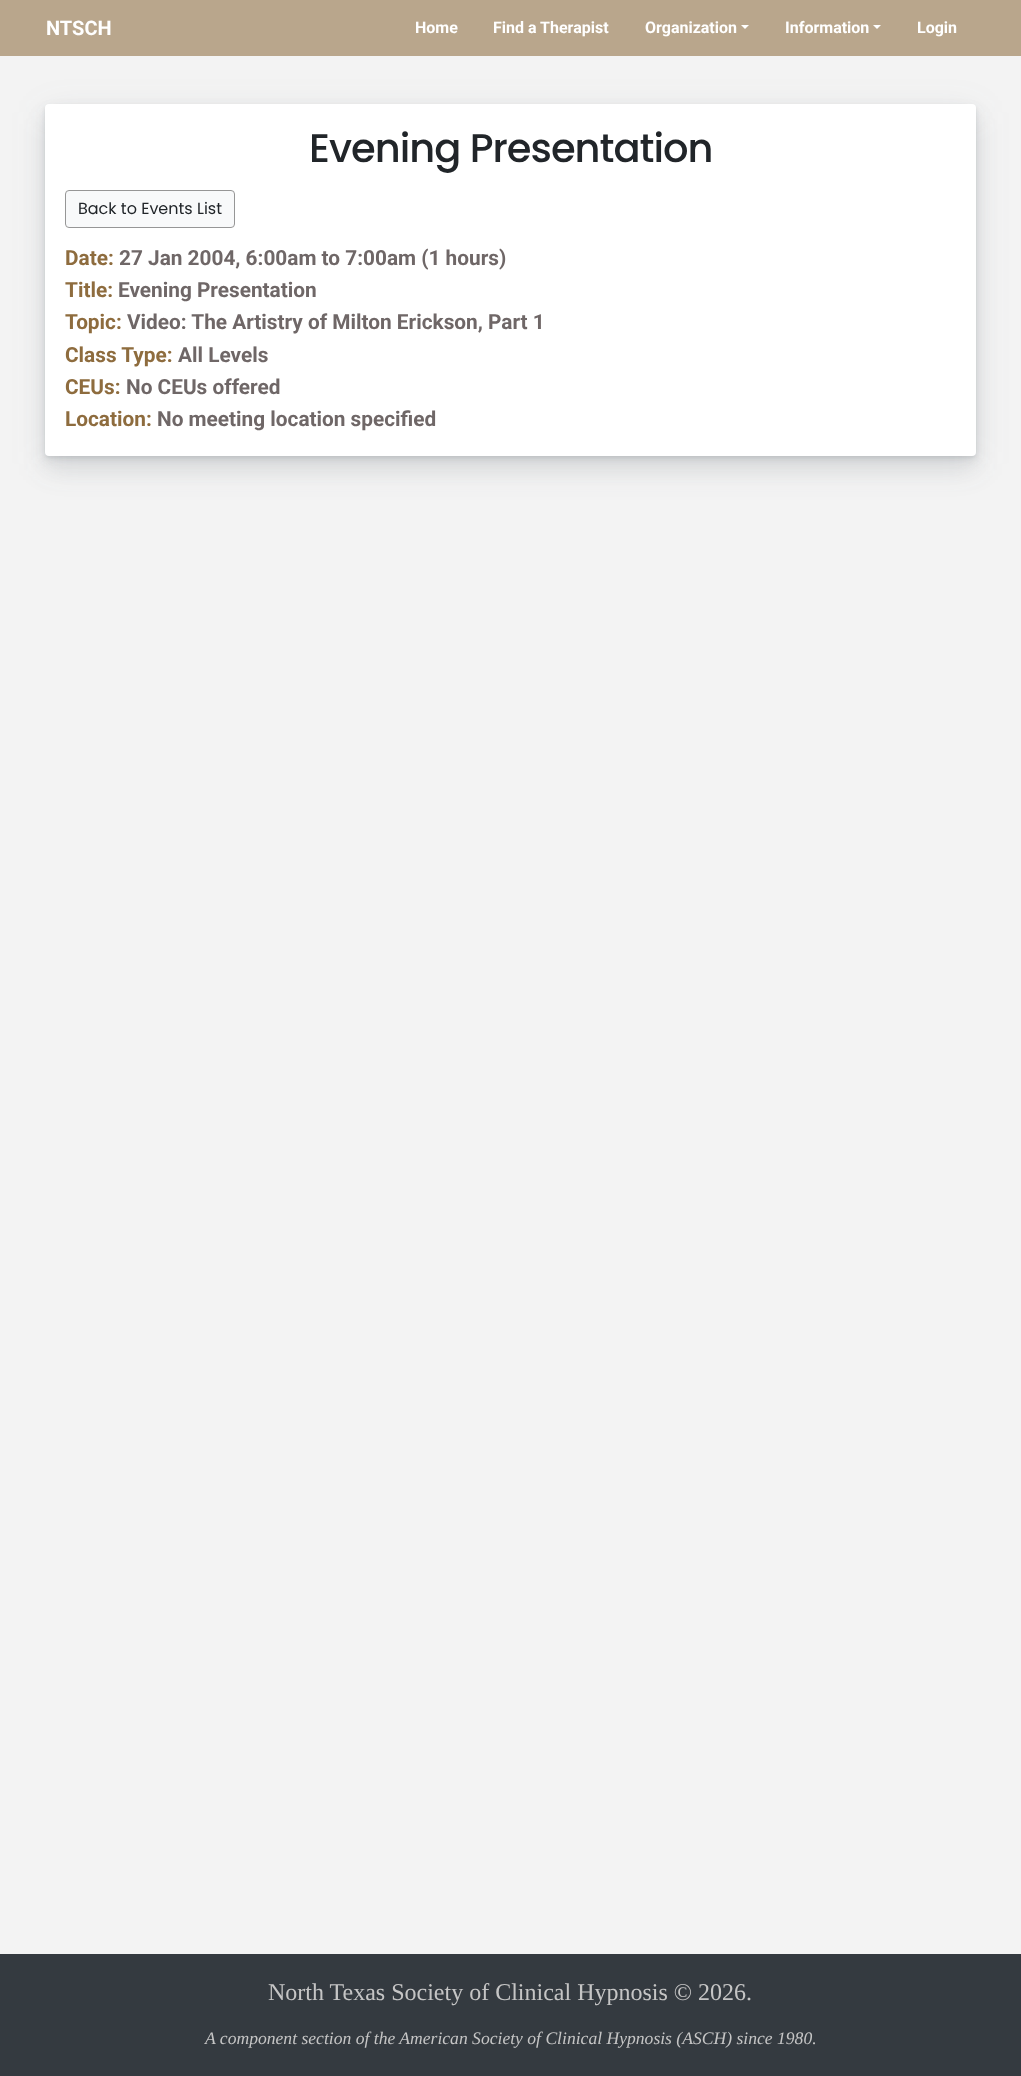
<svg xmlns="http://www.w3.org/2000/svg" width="1021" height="2076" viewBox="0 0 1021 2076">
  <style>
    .t1 { font: bold 20px Roboto; fill: #fff; }
    .t2 { font: bold 16px Roboto; fill: #fff; }
    .t3 { font: 500 40px Poppins; letter-spacing: -1px; fill: #212529; }
    .t4 { font: 16px Poppins; fill: #212529; }
    .t5 { font: bold 20.8px Roboto; fill: #8e6c3e; }
    .t6 { font: bold 20.8px Roboto; fill: #6f6767; }
    .t7 { font: 24px Liberation Serif; fill: #c5c5c5; }
    .t8 { font: italic 17.6px Liberation Serif; fill: #c5c5c5; }
  </style>
  <rect width="100%" height="100%" fill="#f3f3f3"/>
  <rect x="0" y="0" width="1021" height="56" fill="#b9a68c"/>
  <text x="46" y="35" class="t1">NTSCH</text>
  <text x="415" y="33" class="t2">Home</text>
  <text x="493" y="33" class="t2">Find a Therapist</text>
  <text x="645" y="33" class="t2">Organization</text>
  <path d="M741 25H749L745 29Z" fill="#fff"/>
  <text x="785" y="33" class="t2">Information</text>
  <path d="M873 25H881L877 29Z" fill="#fff"/>
  <text x="917" y="33" class="t2">Login</text>
  <rect x="45" y="106" width="931" height="352" rx="4" fill="#5a61691a" filter="blur(1.5px)"/>
  <rect x="45" y="108" width="931" height="352" rx="4" fill="#5a61691f" filter="blur(4px)"/>
  <rect x="45" y="119" width="931" height="352" rx="4" fill="#5a61691a" filter="blur(11px)"/>
  <rect x="45" y="112" width="931" height="352" rx="4" fill="#5a61691a" filter="blur(17.5px)"/>
  <rect x="45" y="104" width="931" height="352" rx="4" fill="#fff"/>
  <text x="309" y="162" class="t3">Evening Presentation</text>
  <rect x="65.5" y="190.5" width="169" height="37" rx="3.5" fill="#f8f9fa" stroke="#969696"/>
  <text x="78" y="214" class="t4">Back to Events List</text>
  <text x="65" y="265" class="t5">Date:</text>
  <text x="119" y="265" class="t6">27 Jan 2004, 6:00am to 7:00am (1 hours)</text>
  <text x="65" y="297" class="t5">Title:</text>
  <text x="118" y="297" class="t6">Evening Presentation</text>
  <text x="65" y="329" class="t5">Topic:</text>
  <text x="127" y="329" class="t6">Video: The Artistry of Milton Erickson, Part 1</text>
  <text x="65" y="362" class="t5">Class Type:</text>
  <text x="178" y="362" class="t6">All Levels</text>
  <text x="65" y="394" class="t5">CEUs:</text>
  <text x="126" y="394" class="t6">No CEUs offered</text>
  <text x="65" y="426" class="t5">Location:</text>
  <text x="157" y="426" class="t6">No meeting location specified</text>
  <rect x="0" y="1954" width="1021" height="122" fill="#343a40"/>
  <text x="268" y="2000" class="t7">North Texas Society of Clinical Hypnosis © 2026.</text>
  <text x="205" y="2044" class="t8">A component section of the American Society of Clinical Hypnosis (ASCH) since 1980.</text>
</svg>
